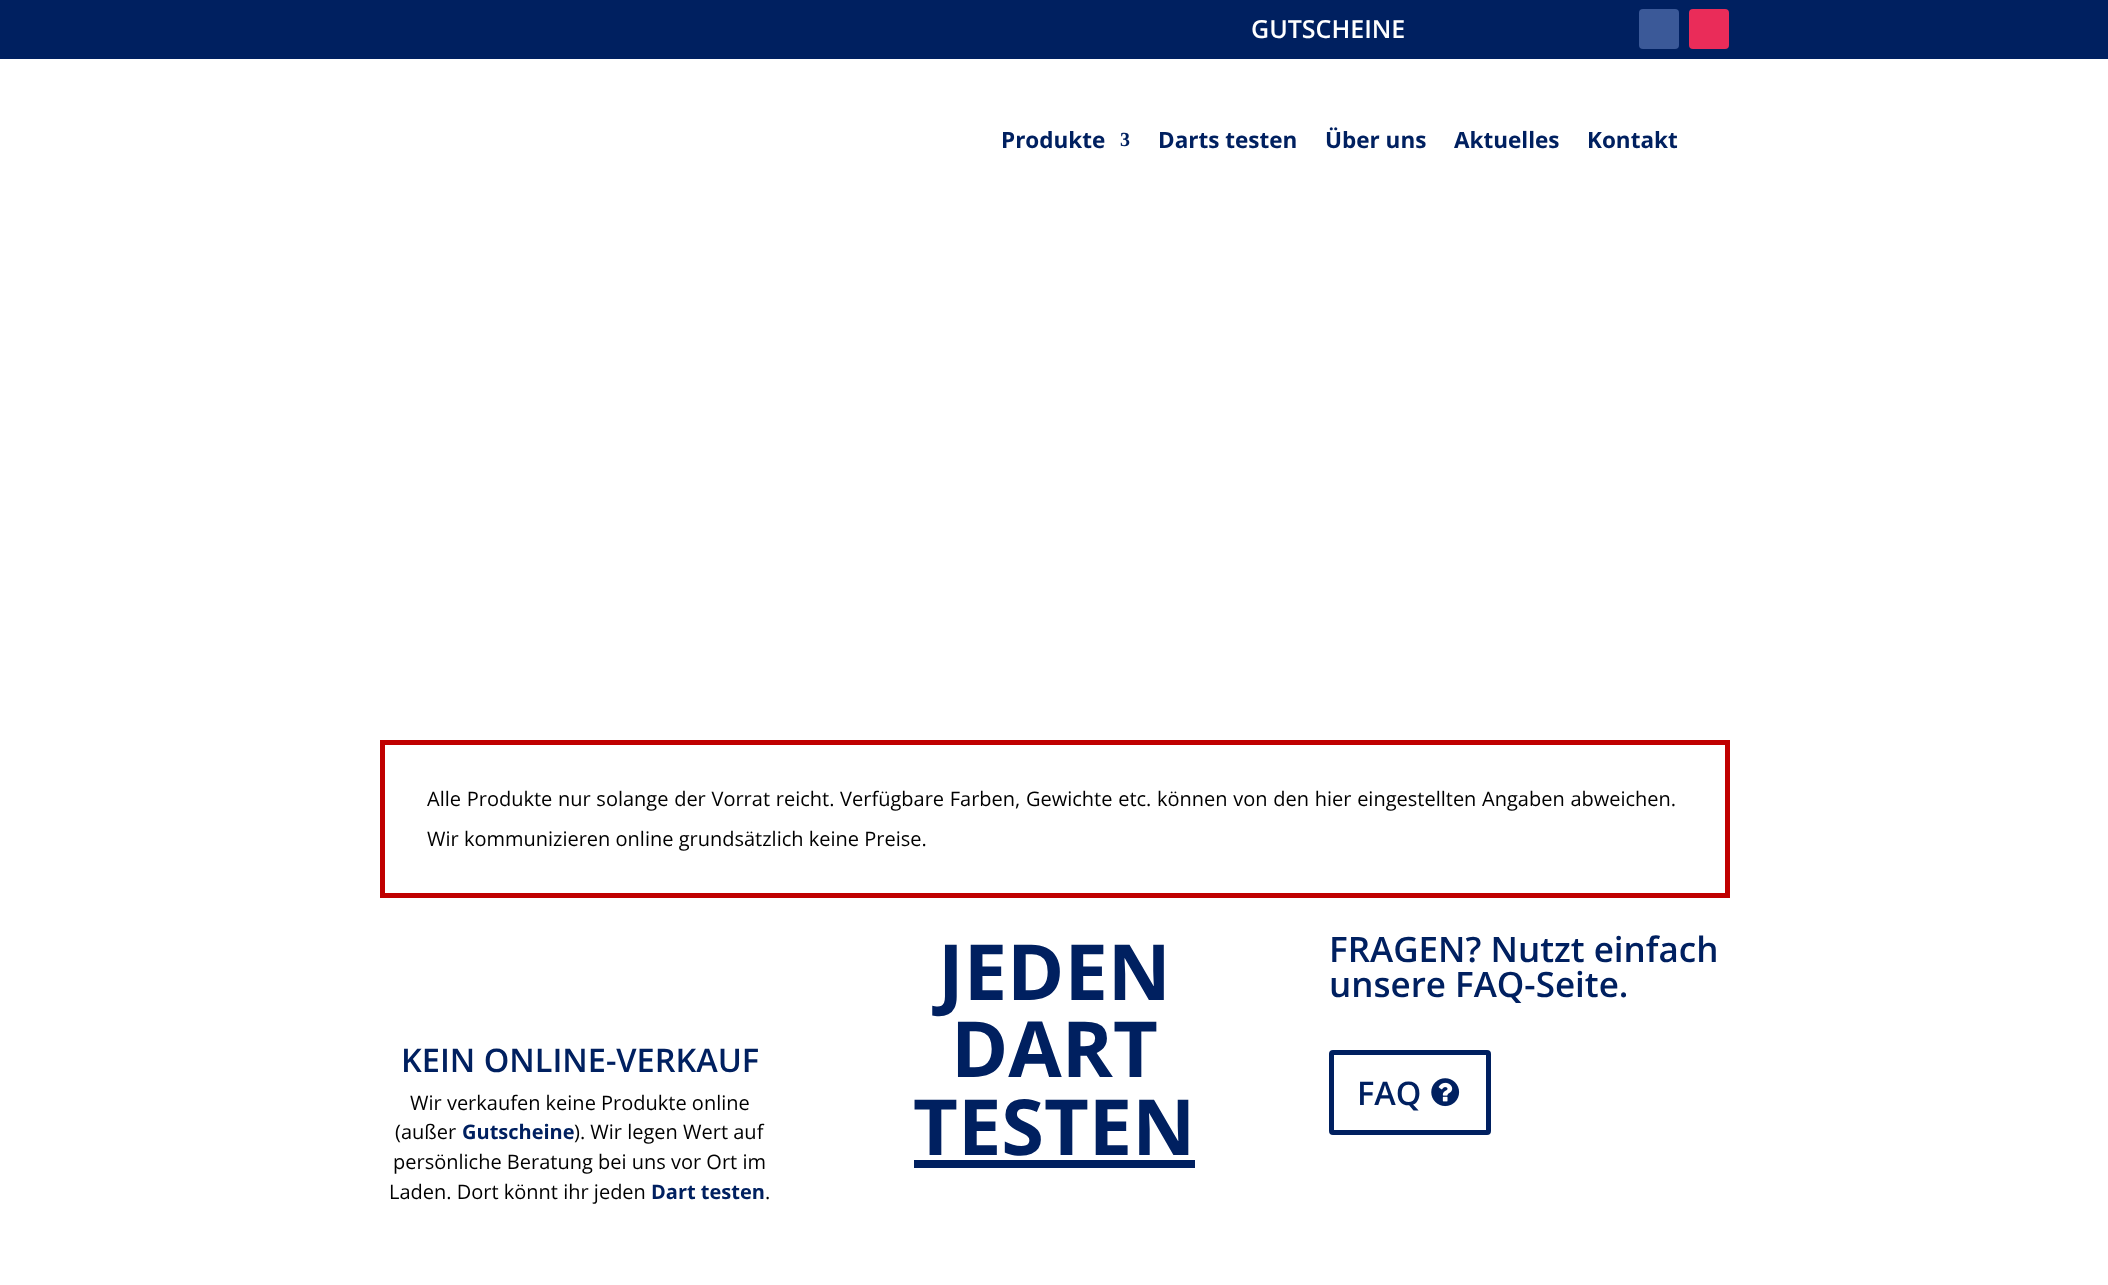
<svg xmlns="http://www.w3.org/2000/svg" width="2108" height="1285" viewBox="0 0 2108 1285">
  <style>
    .t1 { font: 600 25px Open Sans; fill: #fff; }
    .t2 { font: bold 22.5px Open Sans; fill: #002060; }
    .t3 { font: bold 20px Liberation Serif; fill: #002060; }
    .t4 { font: 20px Open Sans; fill: #000; }
    .t5 { font: 600 32.5px Open Sans; fill: #002060; }
    .t6 { font: bold 20px Open Sans; fill: #002060; }
    .t7 { font: bold 77.5px Open Sans; fill: #002060; }
    .t8 { font: 600 35px Open Sans; fill: #002060; }
  </style>
  <rect width="100%" height="100%" fill="#fff"/>
  <rect x="0" y="0" width="2108" height="59" fill="#002060"/>
  <text x="1251" y="38" class="t1">GUTSCHEINE</text>
  <rect x="1639" y="9" width="40" height="40" rx="4" fill="#3b5998"/>
  <rect x="1689" y="9" width="40" height="40" rx="4" fill="#ea2c59"/>
  <text x="1001" y="148" class="t2">Produkte</text>
  <text x="1120" y="146" class="t3">3</text>
  <text x="1158" y="148" class="t2">Darts testen</text>
  <text x="1325" y="148" class="t2">Über uns</text>
  <text x="1454" y="148" class="t2">Aktuelles</text>
  <text x="1587" y="148" class="t2">Kontakt</text>
  <rect x="382.5" y="742.5" width="1345" height="153" fill="none" stroke="#c00000" stroke-width="5"/>
  <text x="427" y="806" word-spacing="0.5" class="t4">Alle Produkte nur solange der Vorrat reicht. Verfügbare Farben, Gewichte etc. können von den hier eingestellten Angaben abweichen.</text>
  <text x="427" y="846" class="t4">Wir kommunizieren online grundsätzlich keine Preise.</text>
  <text x="401" y="1072" class="t5">KEIN ONLINE-VERKAUF</text>
  <text x="410" y="1110" class="t4">Wir verkaufen keine Produkte online</text>
  <text x="395" y="1139" class="t4">(außer</text>
  <text x="462" y="1139" class="t6">Gutscheine</text>
  <text x="574" y="1139" class="t4">). Wir legen Wert auf</text>
  <text x="393" y="1169" class="t4">persönliche Beratung bei uns vor Ort im</text>
  <text x="389" y="1199" class="t4">Laden. Dort könnt ihr jeden</text>
  <text x="651" y="1199" class="t6">Dart testen</text>
  <text x="765" y="1199" class="t4">.</text>
  <text x="938" y="1000" class="t7">JEDEN</text>
  <text x="951" y="1077" class="t7">DART</text>
  <text x="913" y="1155" class="t7">TESTEN</text>
  <rect x="914" y="1160" width="281" height="8" fill="#002060"/>
  <text x="1329" y="962" class="t8">FRAGEN? Nutzt einfach</text>
  <text x="1329" y="997" class="t8">unsere FAQ-Seite.</text>
  <rect x="1331.5" y="1052.5" width="157" height="80" rx="1.5" fill="none" stroke="#002060" stroke-width="5"/>
  <text x="1357" y="1105" class="t5">FAQ</text>
  <image x="1431" y="1078" width="29" height="29" href="images/1.png"/>
</svg>
